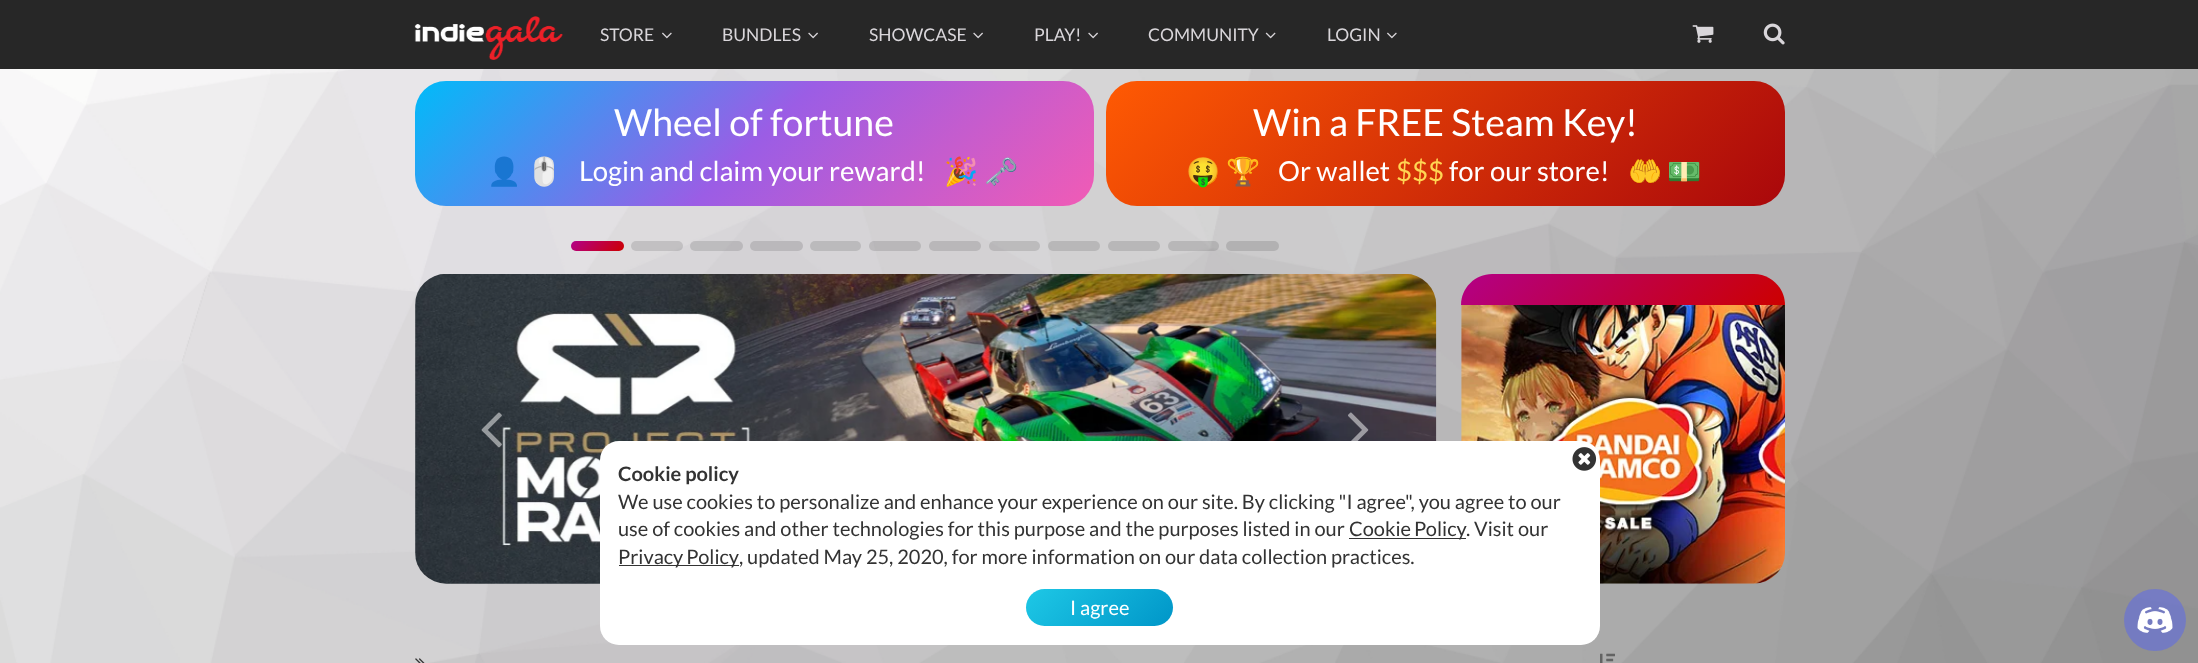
<svg xmlns="http://www.w3.org/2000/svg" width="2198" height="663" viewBox="0 0 2198 663">
  <style>
    .t1 { font: 17.5px Lato; fill: #d9d6da; }
    .t2 { font: 37.5px Lato; fill: #fff; }
    .t3 { font: 27.5px Noto Color Emoji; fill: #fff; }
    .t4 { font: 27.5px Lato; fill: #fff; }
    .t5 { font: 27.5px Lato; fill: #ffd553; }
    .t6 { font: bold 20px Lato; fill: #333; }
    .t7 { font: 20px Lato; fill: #333; }
    .t8 { font: 20px Lato; fill: #fff; }
  </style>
  <defs>
    <linearGradient id="g1" gradientUnits="userSpaceOnUse" x1="553" y1="-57" x2="955" y2="345"><stop offset="0" stop-color="#00bbf9"/><stop offset="0.5" stop-color="#9b5de5"/><stop offset="1" stop-color="#f15bb5"/></linearGradient>
    <linearGradient id="g2" gradientUnits="userSpaceOnUse" x1="1245" y1="-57" x2="1647" y2="345"><stop offset="0" stop-color="#ff5a03"/><stop offset="1" stop-color="#a9070b"/></linearGradient>
    <linearGradient id="g3" gradientUnits="userSpaceOnUse" x1="582" y1="231" x2="613" y2="262"><stop offset="0" stop-color="#b30086"/><stop offset="1" stop-color="#c00"/></linearGradient>
    <linearGradient id="g4" gradientUnits="userSpaceOnUse" x1="1534" y1="201" x2="1712" y2="378"><stop offset="0" stop-color="#b30086"/><stop offset="1" stop-color="#c00"/></linearGradient>
    <linearGradient id="g5" gradientUnits="userSpaceOnUse" x1="1053" y1="562" x2="1145" y2="653"><stop offset="0" stop-color="#1ec8e6"/><stop offset="1" stop-color="#0096c8"/></linearGradient>
  </defs>
  <rect width="100%" height="100%" fill="#fff"/>
  <image x="0" y="69" width="2198" height="594" href="images/1.png"/>
  <rect x="0" y="0" width="2198" height="69" fill="#272727"/>
  <image x="414" y="16" width="149" height="44" href="images/2.png"/>
  <text x="600" y="41" class="t1">STORE</text>
  <image x="662" y="32" width="10" height="7" href="images/3.png"/>
  <text x="722" y="41" class="t1">BUNDLES</text>
  <image x="808" y="32" width="10" height="7" href="images/4.png"/>
  <text x="869" y="41" class="t1">SHOWCASE</text>
  <image x="973" y="32" width="10" height="7" href="images/4.png"/>
  <text x="1034" y="41" class="t1">PLAY!</text>
  <image x="1088" y="32" width="10" height="7" href="images/4.png"/>
  <text x="1148" y="41" class="t1">COMMUNITY</text>
  <image x="1265" y="32" width="11" height="7" href="images/5.png"/>
  <text x="1327" y="41" class="t1">LOGIN</text>
  <image x="1387" y="32" width="10" height="7" href="images/3.png"/>
  <image x="1692" y="25" width="22" height="18" href="images/6.png"/>
  <image x="1763" y="23" width="22" height="22" href="images/7.png"/>
  <rect x="415" y="81" width="679" height="125" rx="31" fill="url(#g1)"/>
  <text x="614" y="136" class="t2">Wheel of fortune</text>
  <text x="487" y="181" class="t3">👤</text>
  <text x="527" y="181" class="t3">🖱️</text>
  <text x="579" y="181" class="t4">Login and claim your reward!</text>
  <text x="944" y="181" class="t3">🎉</text>
  <text x="984" y="181" class="t3">🗝️</text>
  <rect x="1106" y="81" width="679" height="125" rx="31" fill="url(#g2)"/>
  <text x="1253" y="136" class="t2">Win a FREE Steam Key!</text>
  <text x="1186" y="181" class="t3">🤑</text>
  <text x="1226" y="181" class="t3">🏆</text>
  <text x="1278" y="181" class="t4">Or wallet</text>
  <text x="1396" y="181" class="t5">$$$</text>
  <text x="1449" y="181" class="t4">for our store!</text>
  <text x="1628" y="181" class="t3">🤲</text>
  <text x="1667" y="181" class="t3">💵</text>
  <rect x="571" y="241" width="53" height="10" rx="5" fill="url(#g3)"/>
  <rect x="631" y="241" width="52" height="10" rx="5" fill="#0000001f"/>
  <rect x="690" y="241" width="53" height="10" rx="5" fill="#0000001f"/>
  <rect x="750" y="241" width="53" height="10" rx="5" fill="#bab8bb"/>
  <rect x="810" y="241" width="51" height="10" rx="5" fill="#bbbabc"/>
  <rect x="869" y="241" width="52" height="10" rx="5" fill="#0000001f"/>
  <rect x="929" y="241" width="52" height="10" rx="5" fill="#b9b7b9"/>
  <rect x="989" y="241" width="51" height="10" rx="5" fill="#0000001f"/>
  <rect x="1048" y="241" width="52" height="10" rx="5" fill="#0000001f"/>
  <rect x="1108" y="241" width="52" height="10" rx="5" fill="#b8b7b8"/>
  <rect x="1168" y="241" width="51" height="10" rx="5" fill="#0000001f"/>
  <rect x="1226" y="241" width="53" height="10" rx="5" fill="#b2b1b2"/>
  <image x="415" y="274" width="1022" height="310" href="images/8.png"/>
  <image x="481" y="412" width="21" height="36" href="images/9.png"/>
  <image x="1348" y="412" width="21" height="29" href="images/10.png"/>
  <path d="M1492 274H1754C1771 274 1785 288 1785 305H1461C1461 288 1475 274 1492 274Z" fill="url(#g4)"/>
  <image x="1461" y="305" width="324" height="279" href="images/11.png"/>
  <image x="415" y="658" width="10" height="5" href="images/12.png"/>
  <image x="1600" y="653" width="15" height="10" href="images/13.png"/>
  <rect x="600" y="441" width="1000" height="204" rx="19" fill="#fff"/>
  <image x="1572" y="447" width="25" height="24" href="images/14.png"/>
  <text x="618" y="481" class="t6">Cookie policy</text>
  <text x="618" y="509" class="t7">We use cookies to personalize and enhance your experience on our site. By clicking "I agree", you agree to our</text>
  <text x="618" y="536" class="t7">use of cookies and other technologies for this purpose and the purposes listed in our</text>
  <rect x="1349" y="538" width="117" height="1" fill="#333"/>
  <text x="1349" y="536" word-spacing="-1" class="t7">Cookie Policy</text>
  <text x="1466" y="536" class="t7">. Visit our</text>
  <rect x="619" y="565" width="120" height="1" fill="#333"/>
  <text x="618" y="564" word-spacing="-1" class="t7">Privacy Policy</text>
  <text x="739" y="564" class="t7">, updated May 25, 2020, for more information on our data collection practices.</text>
  <rect x="1026" y="589" width="147" height="37" rx="18.5" fill="url(#g5)"/>
  <text x="1070" y="615" class="t8">I agree</text>
  <circle cx="2155" cy="620" r="31" fill="#5865f280"/>
  <image x="2137" y="607" width="36" height="26" href="images/15.png"/>
</svg>
